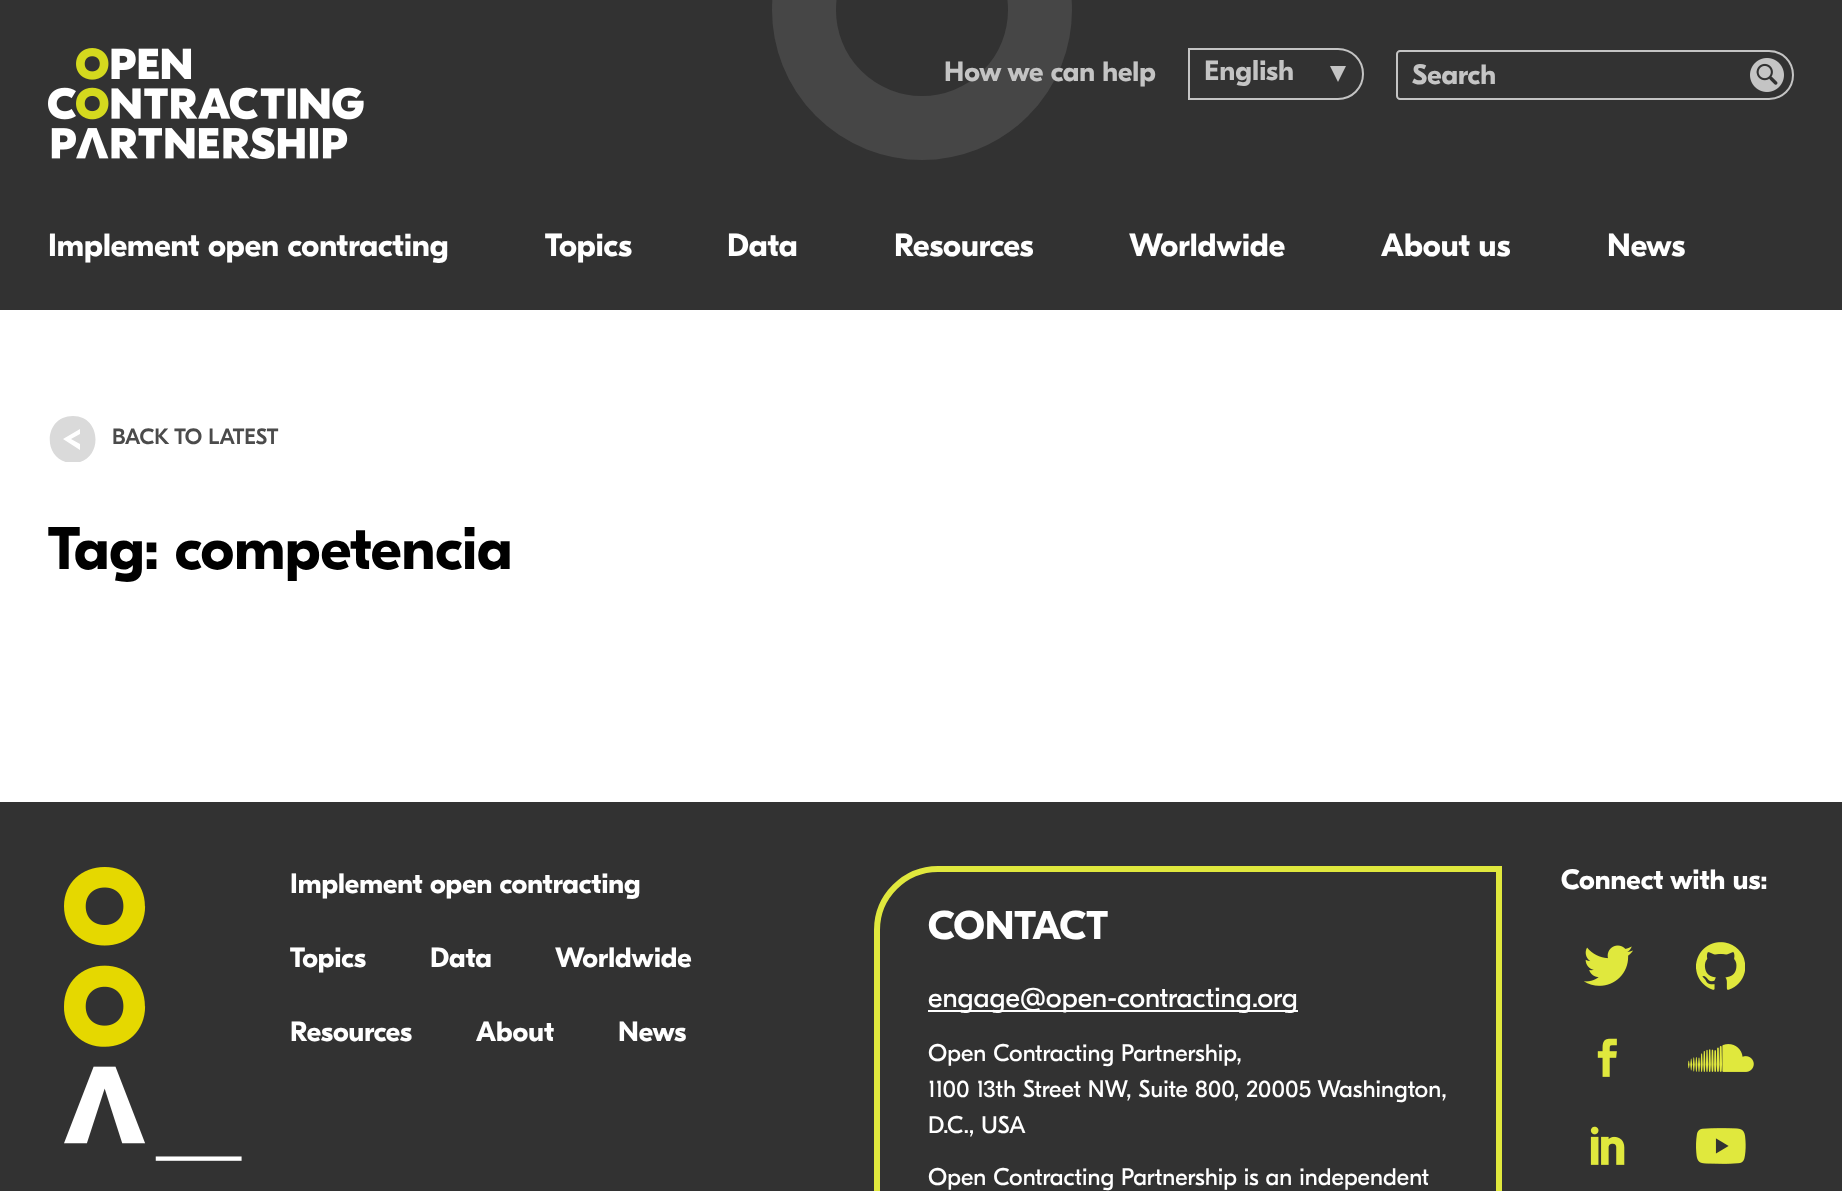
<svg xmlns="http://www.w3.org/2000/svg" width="1842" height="1191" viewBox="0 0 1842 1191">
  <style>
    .t1 { font: bold 28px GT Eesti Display; fill: #c4c4c4; }
    .t2 { font: bold 28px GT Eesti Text; fill: #c4c4c4; }
    .t3 { font: bold 32px GT Eesti Display; fill: #fff; }
    .t4 { font: 500 22px GT Eesti Display; fill: #4b4b4b; }
    .t5 { font: bold 60px GT Eesti Display; fill: #000; }
    .t6 { font: bold 28px GT Eesti Display; fill: #fff; }
    .t7 { font: bold 40px GT Eesti Display; fill: #fff; }
    .t8 { font: 28px GT Eesti Display; fill: #fff; }
    .t9 { font: 24px GT Eesti Display; fill: #fff; }
  </style>
  <defs>
    <clipPath id="clip1"><rect x="48" y="415" width="48" height="47"/></clipPath>
  </defs>
  <rect width="100%" height="100%" fill="#fff"/>
  <rect x="0" y="0" width="1842" height="310" fill="#323232"/>
  <image x="48" y="48" width="316" height="112" href="images/1.png"/>
  <circle cx="922" cy="10" r="118" fill="none" stroke="#464646" stroke-width="64"/>
  <text x="944" y="81" class="t1">How we can help</text>
  <path d="M1189 49H1338C1352 49 1363 60 1363 74C1363 88 1352 99 1338 99H1189Z" fill="none" stroke="#c4c4c4" stroke-width="2"/>
  <text x="1204" y="80" class="t2">English</text>
  <path d="M1330 66H1346L1338 82Z" fill="#c4c4c4"/>
  <path d="M1400 51H1769C1782.5 51 1793 61.5 1793 75C1793 88.5 1782.5 99 1769 99H1400C1398.5 99 1397 97.5 1397 96V54C1397 52.5 1398.5 51 1400 51Z" fill="none" stroke="#c4c4c4" stroke-width="2"/>
  <text x="1412" y="84" class="t1">Search</text>
  <image x="1750" y="58" width="34" height="34" href="images/2.png"/>
  <text x="48" y="256" class="t3">Implement open contracting</text>
  <text x="545" y="256" class="t3">Topics</text>
  <text x="727" y="256" class="t3">Data</text>
  <text x="894" y="256" class="t3">Resources</text>
  <text x="1129" y="256" class="t3">Worldwide</text>
  <text x="1381" y="256" class="t3">About us</text>
  <text x="1607" y="256" class="t3">News</text>
  <g clip-path="url(#clip1)">
    <path d="M73 463C103 463 103 416 73 416C42 416 42 463 73 463ZM80 429V434L71 439L80 444V450L63 439Z" fill="#dadada"/>
  </g>
  <text x="112" y="444" class="t4">BACK TO LATEST</text>
  <text x="48" y="569" class="t5">Tag: competencia</text>
  <rect x="0" y="802" width="1842" height="389" fill="#323232"/>
  <image x="64" y="867" width="178" height="294" href="images/3.png"/>
  <text x="290" y="893" class="t6">Implement open contracting</text>
  <text x="290" y="967" class="t6">Topics</text>
  <text x="430" y="967" class="t6">Data</text>
  <text x="555" y="967" class="t6">Worldwide</text>
  <text x="290" y="1041" class="t6">Resources</text>
  <text x="476" y="1041" class="t6">About</text>
  <text x="618" y="1041" class="t6">News</text>
  <path d="M938 869H1499V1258H877V930C877 896.5 904.5 869 938 869Z" fill="none" stroke="#e0e83d" stroke-width="6"/>
  <text x="928" y="939" class="t7">CONTACT</text>
  <rect x="928" y="1010" width="370" height="2" fill="#fff"/>
  <text x="928" y="1007" class="t8">engage@open-contracting.org</text>
  <text x="928" y="1061" class="t9">Open Contracting Partnership,</text>
  <text x="928" y="1097" class="t9">1100 13th Street NW, Suite 800, 20005 Washington,</text>
  <text x="928" y="1133" class="t9">D.C., USA</text>
  <text x="928" y="1185" class="t9">Open Contracting Partnership is an independent</text>
  <text x="1561" y="889" class="t6">Connect with us:</text>
  <image x="1584" y="945" width="49" height="41" href="images/4.png"/>
  <image x="1696" y="942" width="49" height="48" href="images/5.png"/>
  <image x="1597" y="1038" width="20" height="39" href="images/6.png"/>
  <image x="1688" y="1044" width="66" height="28" href="images/7.png"/>
  <image x="1590" y="1126" width="35" height="39" href="images/8.png"/>
  <image x="1696" y="1128" width="50" height="36" href="images/9.png"/>
</svg>
